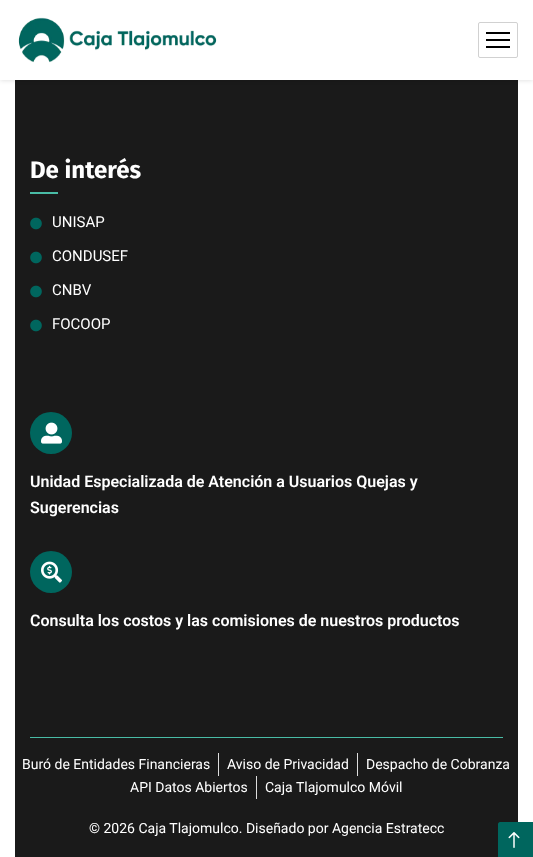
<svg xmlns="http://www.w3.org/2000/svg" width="533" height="857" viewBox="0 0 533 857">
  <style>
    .t1 { font: bold 24px Fira Sans; fill: #fff; }
    .t2 { font: 15px Roboto; fill: #fff; }
    .t3 { font: 600 16px Roboto; fill: #fff; }
    .t4 { font: 14px Roboto; fill: #fff; }
  </style>
  <rect width="100%" height="100%" fill="#fff"/>
  <rect x="15" y="80" width="503" height="777" fill="#1a1a1a"/>
  <rect x="0" y="0" width="533" height="80" fill="#00000026" filter="blur(2.5px)"/>
  <rect x="0" y="0" width="533" height="80" fill="#fff"/>
  <image x="18" y="17" width="199" height="46" href="images/1.png"/>
  <rect x="478.5" y="22.5" width="39" height="35" rx="1.5" fill="none" stroke="#d1d1d1"/>
  <rect x="486" y="32" width="24" height="2" fill="#000"/>
  <rect x="486" y="39" width="24" height="2" fill="#000"/>
  <rect x="486" y="46" width="24" height="2" fill="#000"/>
  <text x="30" y="178" class="t1">De interés</text>
  <rect x="30" y="192" width="28" height="2" fill="#49bca6"/>
  <image x="30" y="217" width="12" height="13" href="images/2.png"/>
  <text x="52" y="227" class="t2">UNISAP</text>
  <image x="30" y="251" width="12" height="13" href="images/2.png"/>
  <text x="52" y="261" class="t2">CONDUSEF</text>
  <image x="30" y="285" width="12" height="13" href="images/2.png"/>
  <text x="52" y="295" class="t2">CNBV</text>
  <image x="30" y="319" width="12" height="13" href="images/2.png"/>
  <text x="52" y="329" class="t2">FOCOOP</text>
  <circle cx="51" cy="433" r="21" fill="#00665e"/>
  <image x="41" y="422" width="21" height="22" href="images/3.png"/>
  <text x="30" y="487" class="t3">Unidad Especializada de Atención a Usuarios Quejas y</text>
  <text x="30" y="513" class="t3">Sugerencias</text>
  <circle cx="51" cy="572" r="21" fill="#00665e"/>
  <image x="41" y="561" width="21" height="22" href="images/4.png"/>
  <text x="30" y="626" class="t3">Consulta los costos y las comisiones de nuestros productos</text>
  <rect x="30" y="737" width="473" height="1" fill="#49bca6"/>
  <text x="22" y="769" class="t4">Buró de Entidades Financieras</text>
  <rect x="218" y="753" width="1" height="23" fill="#ddd"/>
  <text x="227" y="769" class="t4">Aviso de Privacidad</text>
  <rect x="357" y="753" width="1" height="23" fill="#ddd"/>
  <text x="366" y="769" class="t4">Despacho de Cobranza</text>
  <text x="130" y="792" class="t4">API Datos Abiertos</text>
  <rect x="256" y="776" width="1" height="23" fill="#ddd"/>
  <text x="265" y="792" class="t4">Caja Tlajomulco Móvil</text>
  <text x="89" y="833" class="t4">© 2026 Caja Tlajomulco. Diseñado por Agencia Estratecc</text>
  <path d="M500 822H533V857H498V824C498 823 499 822 500 822Z" fill="#00665e"/>
  <image x="508" y="832" width="12" height="16" href="images/5.png"/>
</svg>
